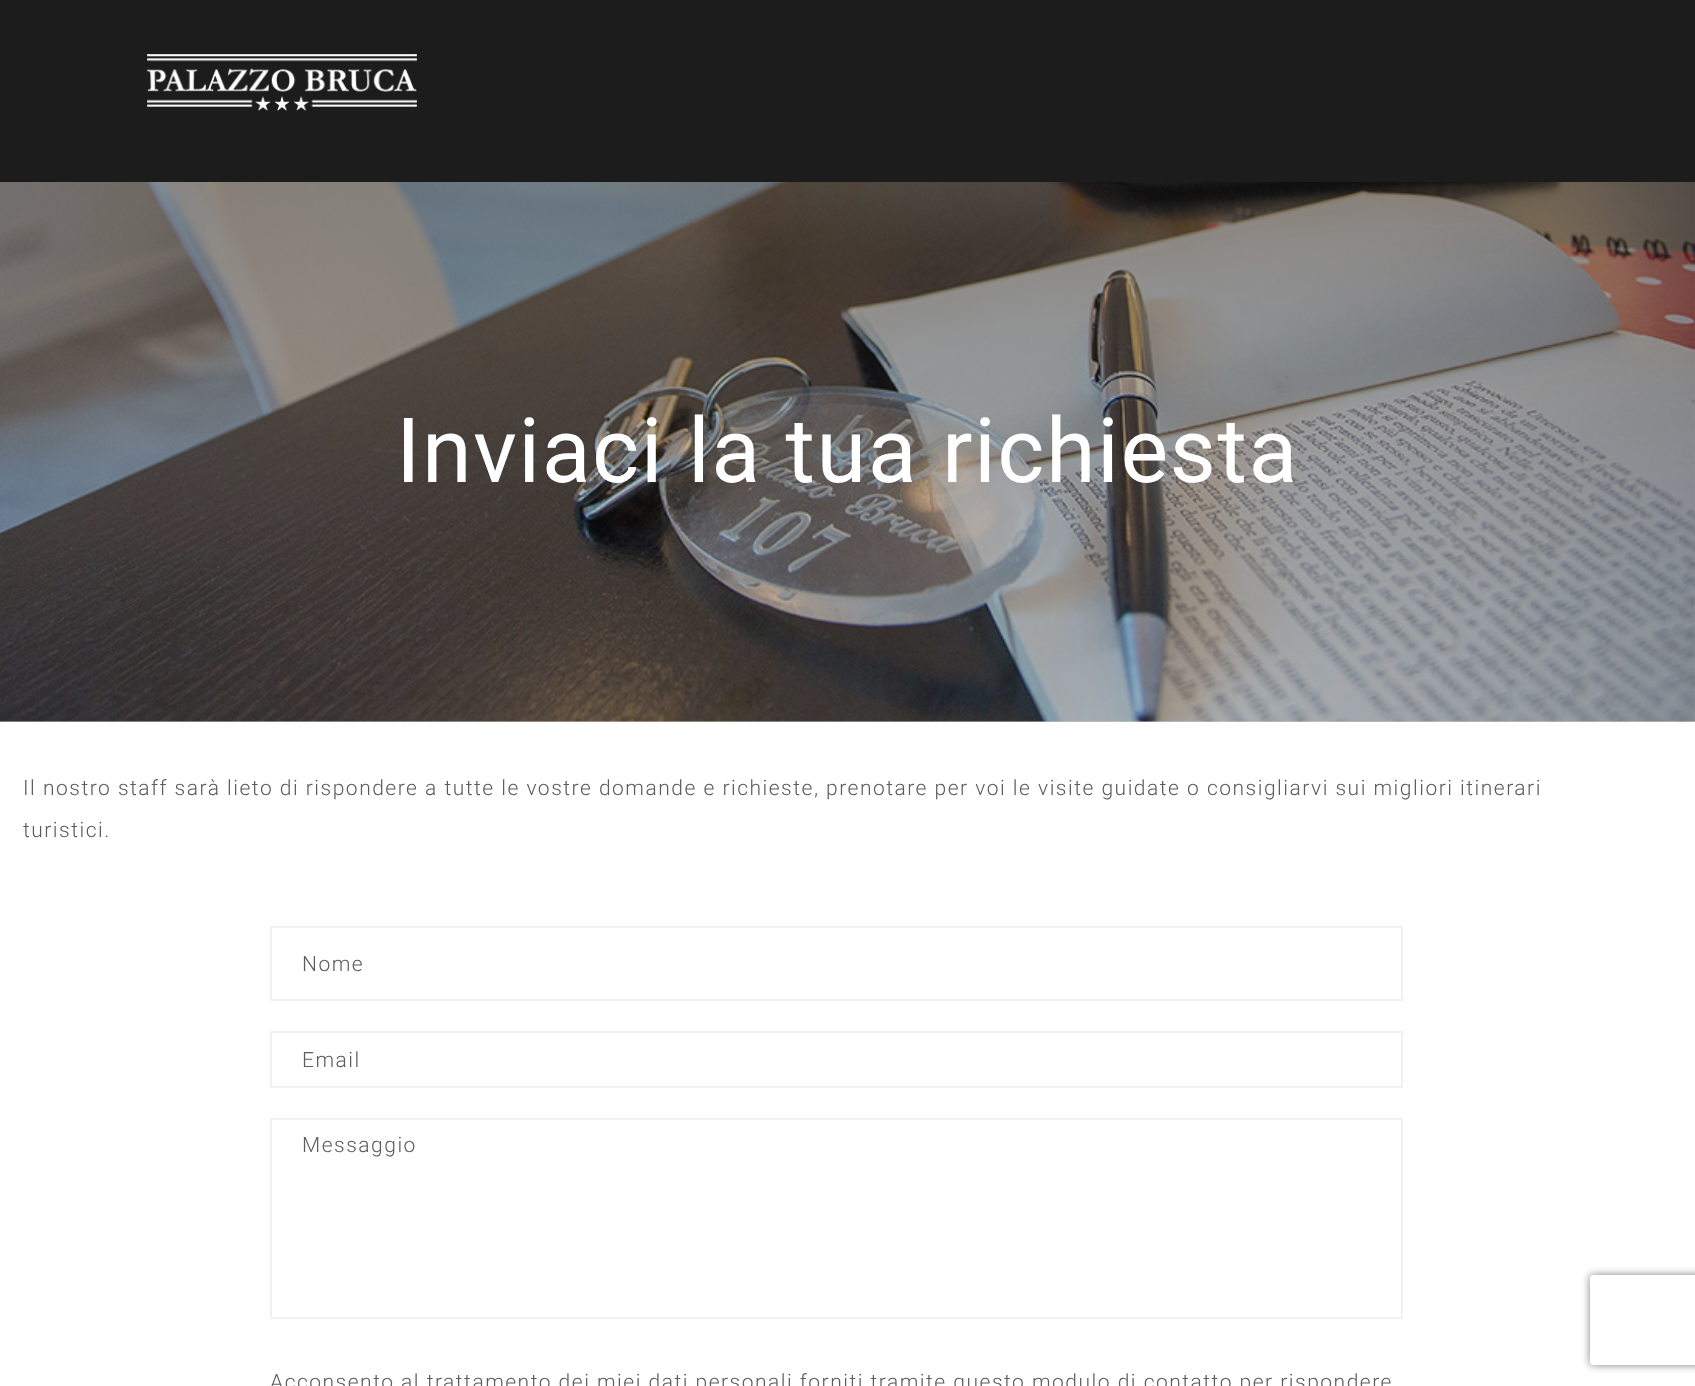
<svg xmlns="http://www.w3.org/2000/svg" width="1695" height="1386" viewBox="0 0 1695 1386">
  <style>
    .t1 { font: 90px Roboto; letter-spacing: 1.5px; fill: #fff; }
    .t2 { font: 300 21px Roboto; letter-spacing: 1.5px; fill: #5c5c5c; }
  </style>
  <defs>
    <linearGradient id="g1" gradientUnits="userSpaceOnUse" x1="848" y1="181" x2="848" y2="722"><stop offset="0" stop-color="#1d1d1d" stop-opacity="0.45"/><stop offset="1" stop-color="#1d1d1d" stop-opacity="0.22"/></linearGradient>
    <clipPath id="clip1"><path d="M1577 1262H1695V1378H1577ZM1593 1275H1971C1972.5 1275 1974 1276.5 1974 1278V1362C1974 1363.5 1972.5 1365 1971 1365H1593C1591.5 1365 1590 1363.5 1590 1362V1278C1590 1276.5 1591.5 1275 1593 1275Z" clip-rule="evenodd"/></clipPath>
  </defs>
  <rect width="100%" height="100%" fill="#fff"/>
  <rect x="0" y="0" width="1695" height="182" fill="#1c1c1d"/>
  <image x="147" y="54" width="270" height="57" href="images/1.png"/>
  <image x="0" y="182" width="1695" height="540" href="images/2.png"/>
  <rect x="0" y="182" width="1695" height="540" fill="url(#g1)"/>
  <text x="396" y="482" class="t1">Inviaci la tua richiesta</text>
  <text x="23" y="795" class="t2">Il nostro staff sarà lieto di rispondere a tutte le vostre domande e richieste, prenotare per voi le visite guidate o consigliarvi sui migliori itinerari</text>
  <text x="23" y="837" class="t2">turistici.</text>
  <rect x="271" y="927" width="1131" height="73" fill="none" stroke="#f1f1f1" stroke-width="2"/>
  <text x="302" y="971" class="t2">Nome</text>
  <rect x="271" y="1032" width="1131" height="55" fill="none" stroke="#f1f1f1" stroke-width="2"/>
  <text x="302" y="1067" class="t2">Email</text>
  <rect x="271" y="1119" width="1131" height="199" fill="none" stroke="#f1f1f1" stroke-width="2"/>
  <text x="302" y="1152" class="t2">Messaggio</text>
  <text x="270" y="1389" class="t2">Acconsento al trattamento dei miei dati personali forniti tramite questo modulo di contatto per rispondere</text>
  <g clip-path="url(#clip1)">
    <rect x="1590" y="1275" width="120" height="90" rx="3" fill="#808080" filter="blur(4px)"/>
  </g>
</svg>
